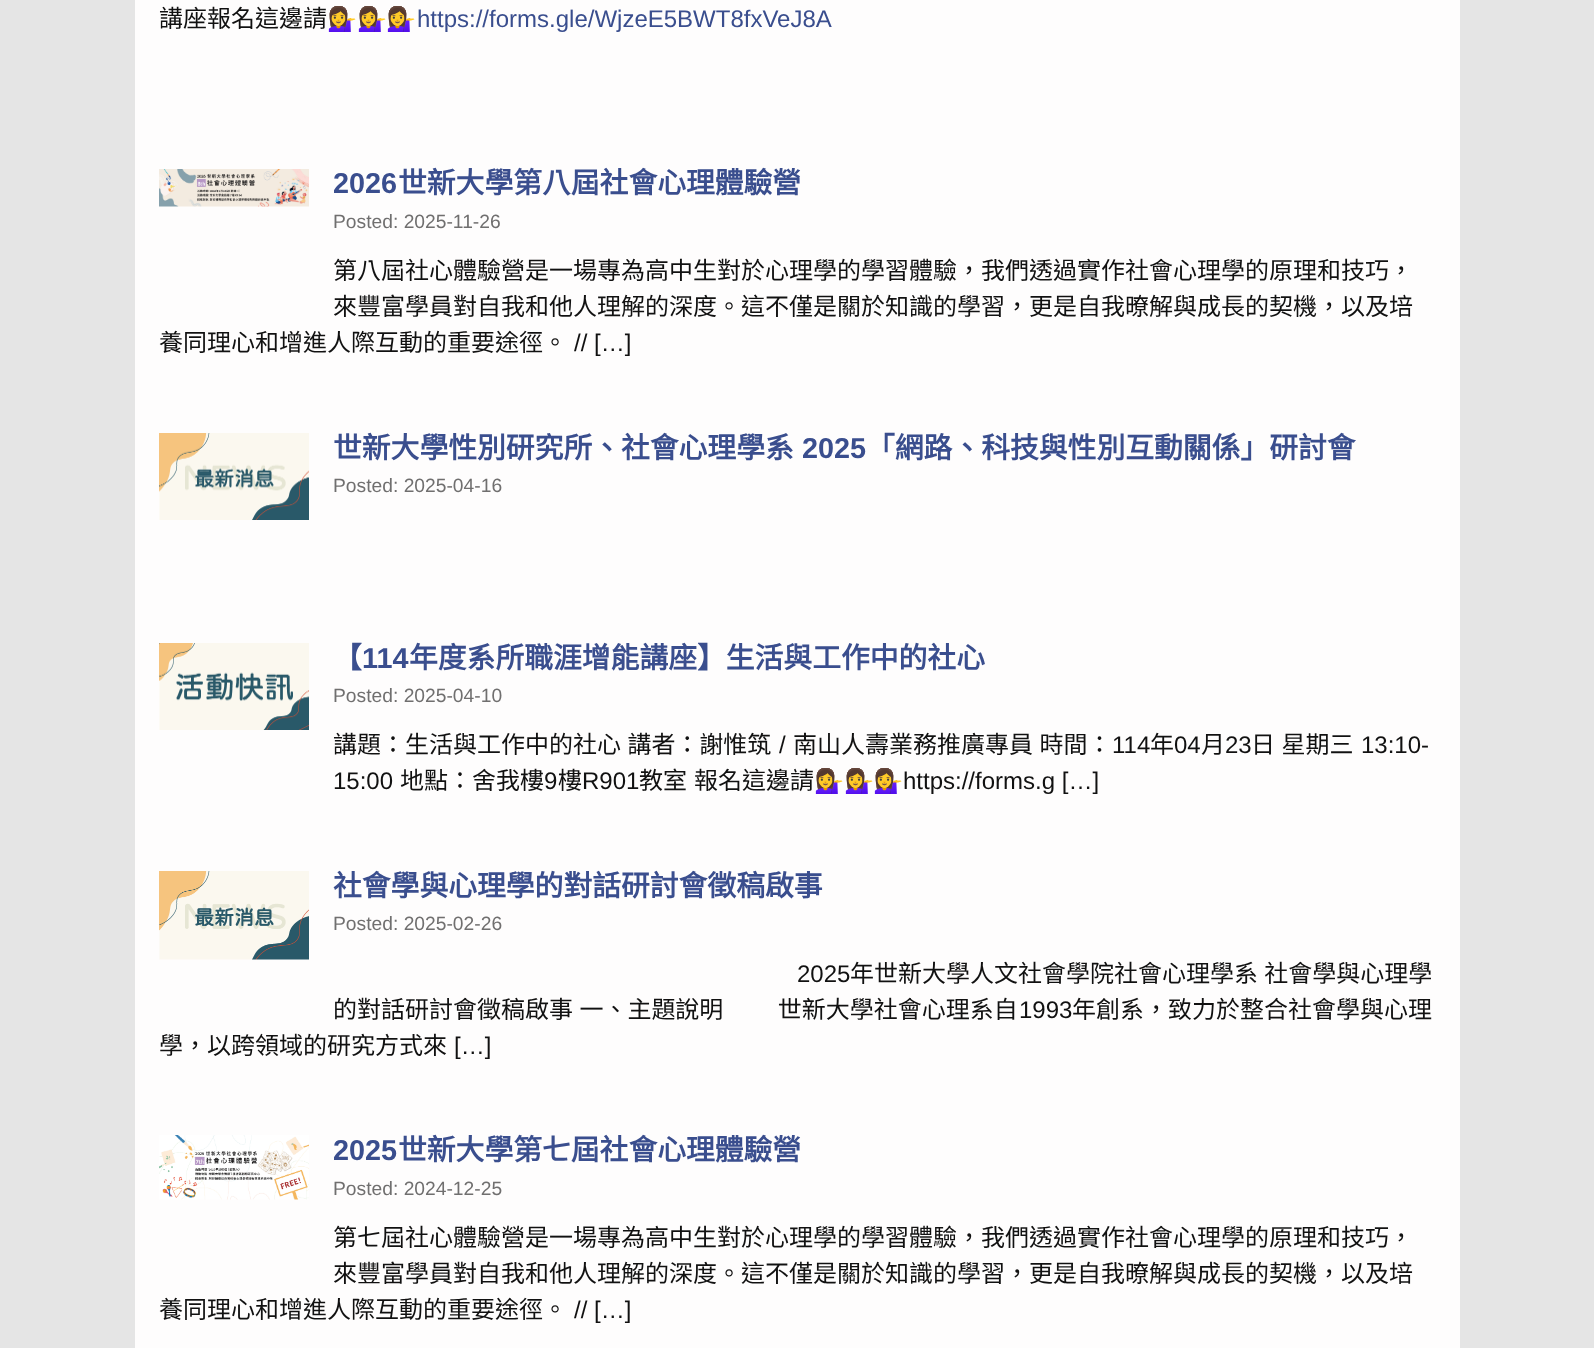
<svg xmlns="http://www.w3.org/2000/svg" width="1594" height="1348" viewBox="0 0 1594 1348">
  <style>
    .t1 { font: 24px Noto Sans CJK TC; fill: #111; }
    .t2 { font: 24px Noto Color Emoji; fill: #111; }
    .t3 { font: 24px Liberation Sans; fill: #3a4e8e; }
    .t4 { font: bold 28.8px Liberation Sans; fill: #3a4e8e; }
    .t5 { font: bold 28.8px Noto Sans CJK TC; fill: #3a4e8e; }
    .t6 { font: 19.25px Liberation Sans; fill: #706f6f; }
    .t7 { font: 24px Liberation Sans; fill: #111; }
  </style>
  <rect width="100%" height="100%" fill="#e5e5e5"/>
  <rect x="135" y="0" width="1325" height="1348" fill="#fefdfd"/>
  <text x="159" y="27" class="t1">講座報名這邊請</text>
  <text x="327" y="27" class="t2">💁‍♀️💁‍♀️💁‍♀️</text>
  <text x="417" y="27" class="t3">https://forms.gle/WjzeE5BWT8fxVeJ8A</text>
  <image x="159" y="169" width="150" height="38" href="images/1.png"/>
  <text x="333" y="193" class="t4">2026</text>
  <text x="398" y="193" class="t5">世新大學第八屆社會心理體驗營</text>
  <text x="333" y="228" class="t6">Posted: 2025-11-26</text>
  <text x="333" y="279" class="t1">第八屆社心體驗營是一場專為高中生對於心理學的學習體驗，我們透過實作社會心理學的原理和技巧，</text>
  <text x="333" y="315" class="t1">來豐富學員對自我和他人理解的深度。這不僅是關於知識的學習，更是自我暸解與成長的契機，以及培</text>
  <text x="159" y="351" class="t1">養同理心和增進人際互動的重要途徑。</text>
  <text x="574" y="351" class="t7">// […]</text>
  <image x="159" y="433" width="150" height="87" href="images/2.png"/>
  <text x="333" y="458" class="t5">世新大學性別研究所、社會心理學系</text>
  <text x="802" y="458" class="t4">2025</text>
  <text x="866" y="458" class="t5">「網路、科技與性別互動關係」研討會</text>
  <text x="333" y="492" class="t6">Posted: 2025-04-16</text>
  <image x="159" y="643" width="150" height="87" href="images/3.png"/>
  <text x="333" y="668" class="t5">【</text>
  <text x="362" y="668" class="t4">114</text>
  <text x="409" y="668" class="t5">年度系所職涯增能講座】生活與工作中的社心</text>
  <text x="333" y="702" class="t6">Posted: 2025-04-10</text>
  <text x="333" y="753" word-spacing="1" class="t1">講題：生活與工作中的社心 講者：謝惟筑</text>
  <text x="779" y="753" class="t7">/</text>
  <text x="793" y="753" word-spacing="1" class="t1">南山人壽業務推廣專員 時間：</text>
  <text x="1112" y="753" class="t7">114</text>
  <text x="1150" y="753" class="t1">年</text>
  <text x="1174" y="753" class="t7">04</text>
  <text x="1201" y="753" class="t1">月</text>
  <text x="1225" y="753" class="t7">23</text>
  <text x="1251" y="753" word-spacing="1" class="t1">日 星期三</text>
  <text x="1361" y="753" class="t7">13:10-</text>
  <text x="333" y="789" class="t7">15:00</text>
  <text x="400" y="789" class="t1">地點：舍我樓</text>
  <text x="544" y="789" class="t7">9</text>
  <text x="558" y="789" class="t1">樓</text>
  <text x="582" y="789" class="t7">R901</text>
  <text x="639" y="789" class="t1">教室</text>
  <text x="694" y="789" class="t1">報名這邊請</text>
  <text x="814" y="789" class="t2">💁‍♀️💁‍♀️💁‍♀️</text>
  <text x="903" y="789" class="t7">https://forms.g […]</text>
  <image x="159" y="871" width="150" height="89" href="images/4.png"/>
  <text x="333" y="896" class="t5">社會學與心理學的對話研討會徵稿啟事</text>
  <text x="333" y="930" class="t6">Posted: 2025-02-26</text>
  <text x="797" y="982" class="t7">2025</text>
  <text x="850" y="982" word-spacing="1" class="t1">年世新大學人文社會學院社會心理學系 社會學與心理學</text>
  <text x="333" y="1018" word-spacing="1" class="t1">的對話研討會徵稿啟事 一、主題說明 　　世新大學社會心理系自</text>
  <text x="1019" y="1018" class="t7">1993</text>
  <text x="1072" y="1018" class="t1">年創系，致力於整合社會學與心理</text>
  <text x="159" y="1054" class="t1">學，以跨領域的研究方式來</text>
  <text x="454" y="1054" class="t7">[…]</text>
  <image x="159" y="1135" width="150" height="65" href="images/5.png"/>
  <text x="333" y="1160" class="t4">2025</text>
  <text x="398" y="1160" class="t5">世新大學第七屆社會心理體驗營</text>
  <text x="333" y="1195" class="t6">Posted: 2024-12-25</text>
  <text x="333" y="1246" class="t1">第七屆社心體驗營是一場專為高中生對於心理學的學習體驗，我們透過實作社會心理學的原理和技巧，</text>
  <text x="333" y="1282" class="t1">來豐富學員對自我和他人理解的深度。這不僅是關於知識的學習，更是自我暸解與成長的契機，以及培</text>
  <text x="159" y="1318" class="t1">養同理心和增進人際互動的重要途徑。</text>
  <text x="574" y="1318" class="t7">// […]</text>
</svg>
